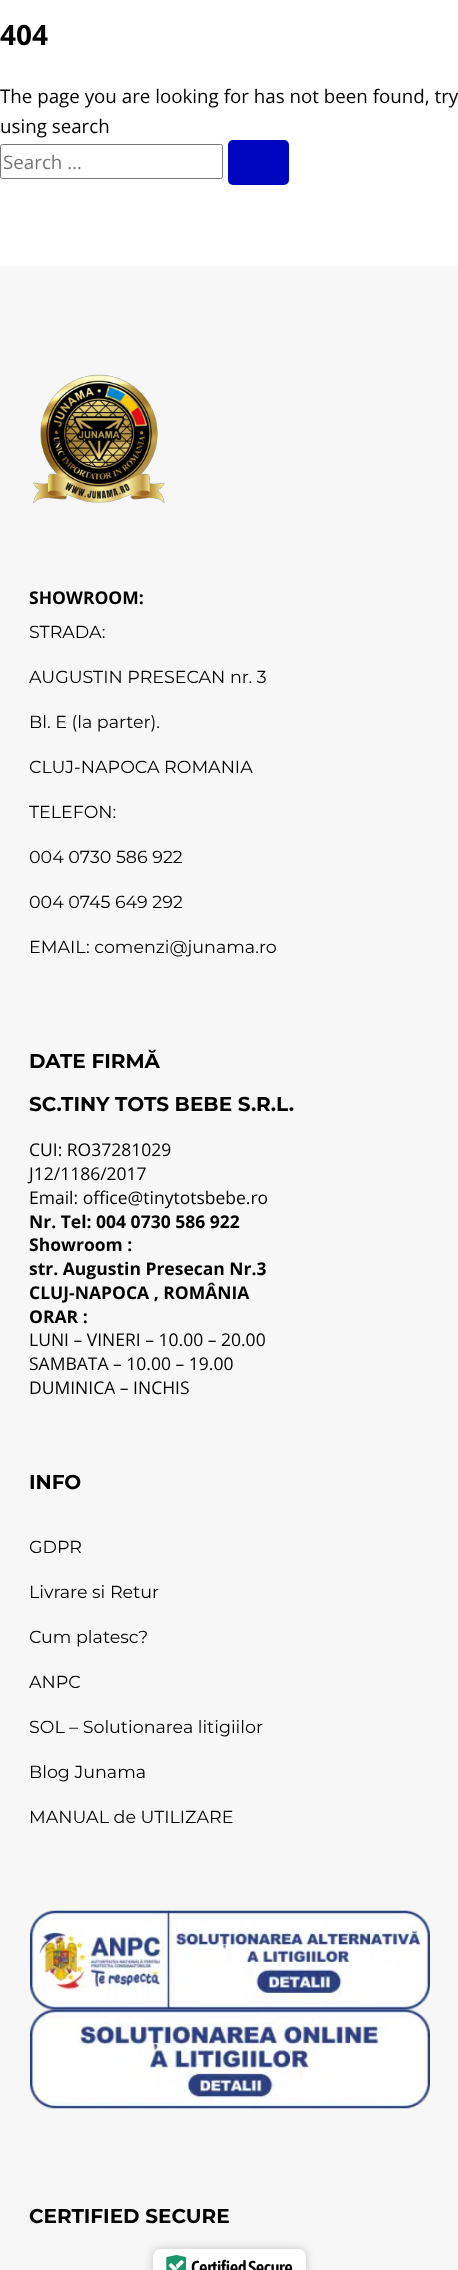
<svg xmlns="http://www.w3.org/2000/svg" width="458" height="2270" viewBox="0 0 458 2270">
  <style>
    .t1 { font: bold 28px Open Sans; fill: #000; }
    .t2 { font: 18.75px Open Sans; fill: #000; }
    .t3 { font: 18.75px Open Sans; fill: #757575; }
    .t4 { font: bold 17.5px Open Sans; fill: #000; }
    .t5 { font: 17.5px Montserrat; fill: #000; }
    .t6 { font: bold 20px Montserrat; fill: #000; }
    .t7 { font: 17.5px Open Sans; fill: #000; }
    .t8 { font: 600 18.75px Asap Condensed; letter-spacing: -0.4px; fill: #000; }
  </style>
  <rect width="100%" height="100%" fill="#fff"/>
  <text x="0" y="45" class="t1">404</text>
  <text x="0" y="103" class="t2">The page you are looking for has not been found, try</text>
  <text x="0" y="133" class="t2">using search</text>
  <rect x="0.5" y="144.5" width="222" height="34" rx="2" fill="none" stroke="#767676"/>
  <text x="3" y="169" class="t3">Search …</text>
  <rect x="228" y="140" width="61" height="45" rx="5" fill="#0006bf"/>
  <rect x="0" y="266" width="458" height="2004" fill="#f7f7f7"/>
  <image x="33" y="374" width="132" height="130" href="images/1.png"/>
  <text x="29" y="604" class="t4">SHOWROOM:</text>
  <text x="29" y="638" class="t5">STRADA:</text>
  <text x="29" y="683" class="t5">AUGUSTIN PRESECAN nr. 3</text>
  <text x="29" y="728" class="t5">Bl. E (la parter).</text>
  <text x="29" y="773" class="t5">CLUJ-NAPOCA ROMANIA</text>
  <text x="29" y="818" class="t5">TELEFON:</text>
  <text x="29" y="863" class="t5">004 0730 586 922</text>
  <text x="29" y="908" class="t5">004 0745 649 292</text>
  <text x="29" y="953" class="t5">EMAIL: comenzi@junama.ro</text>
  <text x="29" y="1068" class="t6">DATE FIRMĂ</text>
  <text x="29" y="1111" class="t6">SC.TINY TOTS BEBE S.R.L.</text>
  <text x="29" y="1156" class="t7">CUI: RO37281029</text>
  <text x="29" y="1180" class="t7">J12/1186/2017</text>
  <text x="29" y="1204" class="t7">Email: office@tinytotsbebe.ro</text>
  <text x="29" y="1228" class="t4">Nr. Tel: 004 0730 586 922</text>
  <text x="29" y="1251" class="t4">Showroom :</text>
  <text x="29" y="1275" class="t4">str. Augustin Presecan Nr.3</text>
  <text x="29" y="1299" class="t4">CLUJ-NAPOCA , ROMÂNIA</text>
  <text x="29" y="1323" class="t4">ORAR :</text>
  <text x="29" y="1346" class="t7">LUNI – VINERI – 10.00 – 20.00</text>
  <text x="29" y="1370" class="t7">SAMBATA – 10.00 – 19.00</text>
  <text x="29" y="1394" class="t7">DUMINICA – INCHIS</text>
  <text x="29" y="1489" class="t6">INFO</text>
  <text x="29" y="1553" class="t5">GDPR</text>
  <text x="29" y="1598" class="t5">Livrare si Retur</text>
  <text x="29" y="1643" class="t5">Cum platesc?</text>
  <text x="29" y="1688" class="t5">ANPC</text>
  <text x="29" y="1733" class="t5">SOL – Solutionarea litigiilor</text>
  <text x="29" y="1778" class="t5">Blog Junama</text>
  <text x="29" y="1823" class="t5">MANUAL de UTILIZARE</text>
  <image x="30" y="1910" width="400" height="100" href="images/2.png"/>
  <image x="30" y="2009" width="400" height="100" href="images/3.png"/>
  <text x="29" y="2223" class="t6">CERTIFIED SECURE</text>
  <rect x="153" y="2249" width="153" height="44" rx="8" fill="#00000033" filter="blur(5px)"/>
  <rect x="153" y="2249" width="153" height="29" rx="8" fill="#fff"/>
  <image x="166" y="2255" width="20" height="15" href="images/4.png"/>
  <text x="191" y="2274" class="t8">Certified Secure</text>
</svg>
